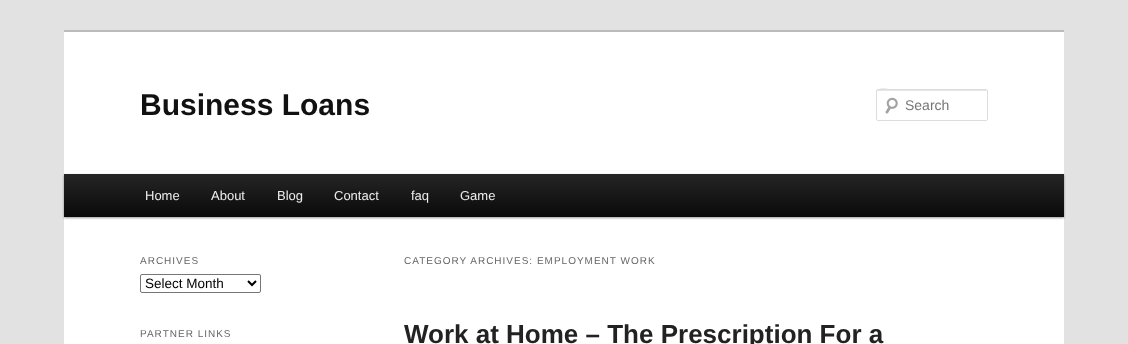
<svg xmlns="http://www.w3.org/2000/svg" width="1128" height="344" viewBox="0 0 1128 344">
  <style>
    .t1 { font: bold 30px Liberation Sans; fill: #111; }
    .t2 { font: 14px Liberation Sans; fill: #757575; }
    .t3 { font: 13px Liberation Sans; fill: #eee; }
    .t4 { font: 10px Liberation Sans; letter-spacing: 1px; fill: #666; }
    .t5 { font: 13.5px Liberation Sans; fill: #000; }
    .t6 { font: bold 26px Liberation Sans; fill: #222; }
  </style>
  <defs>
    <linearGradient id="g1" gradientUnits="userSpaceOnUse" x1="564" y1="174" x2="564" y2="217"><stop offset="0" stop-color="#252525"/><stop offset="1" stop-color="#0a0a0a"/></linearGradient>
  </defs>
  <rect width="100%" height="100%" fill="#e2e2e2"/>
  <rect x="64" y="32" width="1000" height="312" fill="#fff"/>
  <rect x="64" y="30" width="1000" height="2" fill="#bbb"/>
  <text x="140" y="115" class="t1">Business Loans</text>
  <image x="885" y="97" width="13" height="17" href="images/1.png"/>
  <path d="M878 91H987V92L986 90H896C892 90 877 85 877 92C877 91 877 91 878 91Z" fill="#e6e6e6"/>
  <rect x="876.5" y="89.5" width="111" height="31" rx="1.5" fill="none" stroke="#ddd"/>
  <text x="905" y="110" class="t2">Search</text>
  <rect x="64" y="175" width="1000" height="43" fill="#00000066" filter="blur(1px)"/>
  <rect x="64" y="174" width="1000" height="43" fill="url(#g1)"/>
  <text x="145" y="200" class="t3">Home</text>
  <text x="211" y="200" class="t3">About</text>
  <text x="277" y="200" class="t3">Blog</text>
  <text x="334" y="200" class="t3">Contact</text>
  <text x="411" y="200" class="t3">faq</text>
  <text x="460" y="200" class="t3">Game</text>
  <text x="140" y="264" class="t4">ARCHIVES</text>
  <rect x="140.5" y="274.5" width="120" height="18" rx="1.5" fill="none" stroke="#767676"/>
  <path d="M248 281L252 285L256 281" fill="none" stroke="#000" stroke-width="2"/>
  <text x="145" y="288" class="t5">Select Month</text>
  <text x="140" y="337" class="t4">PARTNER LINKS</text>
  <text x="404" y="264" class="t4">CATEGORY ARCHIVES: EMPLOYMENT WORK</text>
  <text x="404" y="343" class="t6">Work at Home – The Prescription For a</text>
</svg>
